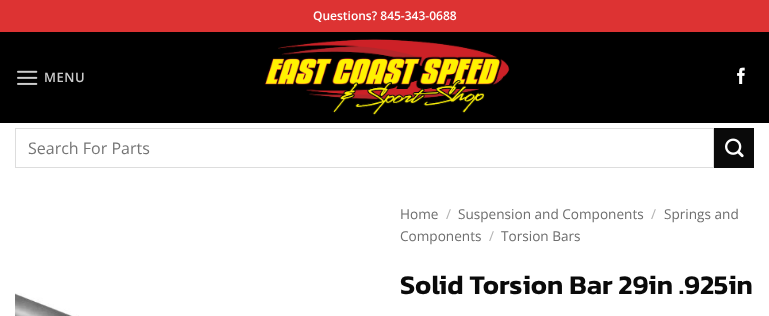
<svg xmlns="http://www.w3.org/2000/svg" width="769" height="316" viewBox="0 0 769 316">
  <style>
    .t1 { font: 600 12px Open Sans; fill: #fff; }
    .t2 { font: 600 13px Open Sans; letter-spacing: 0.5px; fill: #ccc; }
    .t3 { font: 16px Open Sans; fill: #757575; }
    .t4 { font: 13.6px Open Sans; fill: #6e6e6e; }
    .t5 { font: 13.6px Open Sans; fill: #b2b2b2; }
    .t6 { font: 600 27.25px Kanit; fill: #0a0a0a; }
  </style>
  <rect width="100%" height="100%" fill="#fff"/>
  <rect x="0" y="0" width="769" height="32" fill="#d33"/>
  <text x="313" y="20" class="t1">Questions? 845-343-0688</text>
  <rect x="0" y="32" width="769" height="91" fill="#000"/>
  <image x="17" y="70" width="21" height="15" href="images/1.png"/>
  <text x="44" y="82" class="t2">MENU</text>
  <image x="264" y="38" width="246" height="78" href="images/2.png"/>
  <image x="737" y="67" width="8" height="17" href="images/3.png"/>
  <rect x="15.5" y="128.5" width="698" height="39" fill="none" stroke="#ddd"/>
  <text x="28" y="154" class="t3">Search For Parts</text>
  <rect x="714" y="128" width="40" height="40" fill="#0a0a0a"/>
  <image x="725" y="138" width="19" height="20" href="images/4.png"/>
  <text x="400" y="219" class="t4">Home</text>
  <text x="446" y="219" class="t5">/</text>
  <text x="458" y="219" class="t4">Suspension and Components</text>
  <text x="651" y="219" class="t5">/</text>
  <text x="664" y="219" class="t4">Springs and</text>
  <text x="400" y="241" class="t4">Components</text>
  <text x="489" y="241" class="t5">/</text>
  <text x="501" y="241" class="t4">Torsion Bars</text>
  <text x="400" y="294" class="t6">Solid Torsion Bar 29in .925in</text>
  <image x="15" y="293" width="64" height="23" href="images/5.png"/>
</svg>
